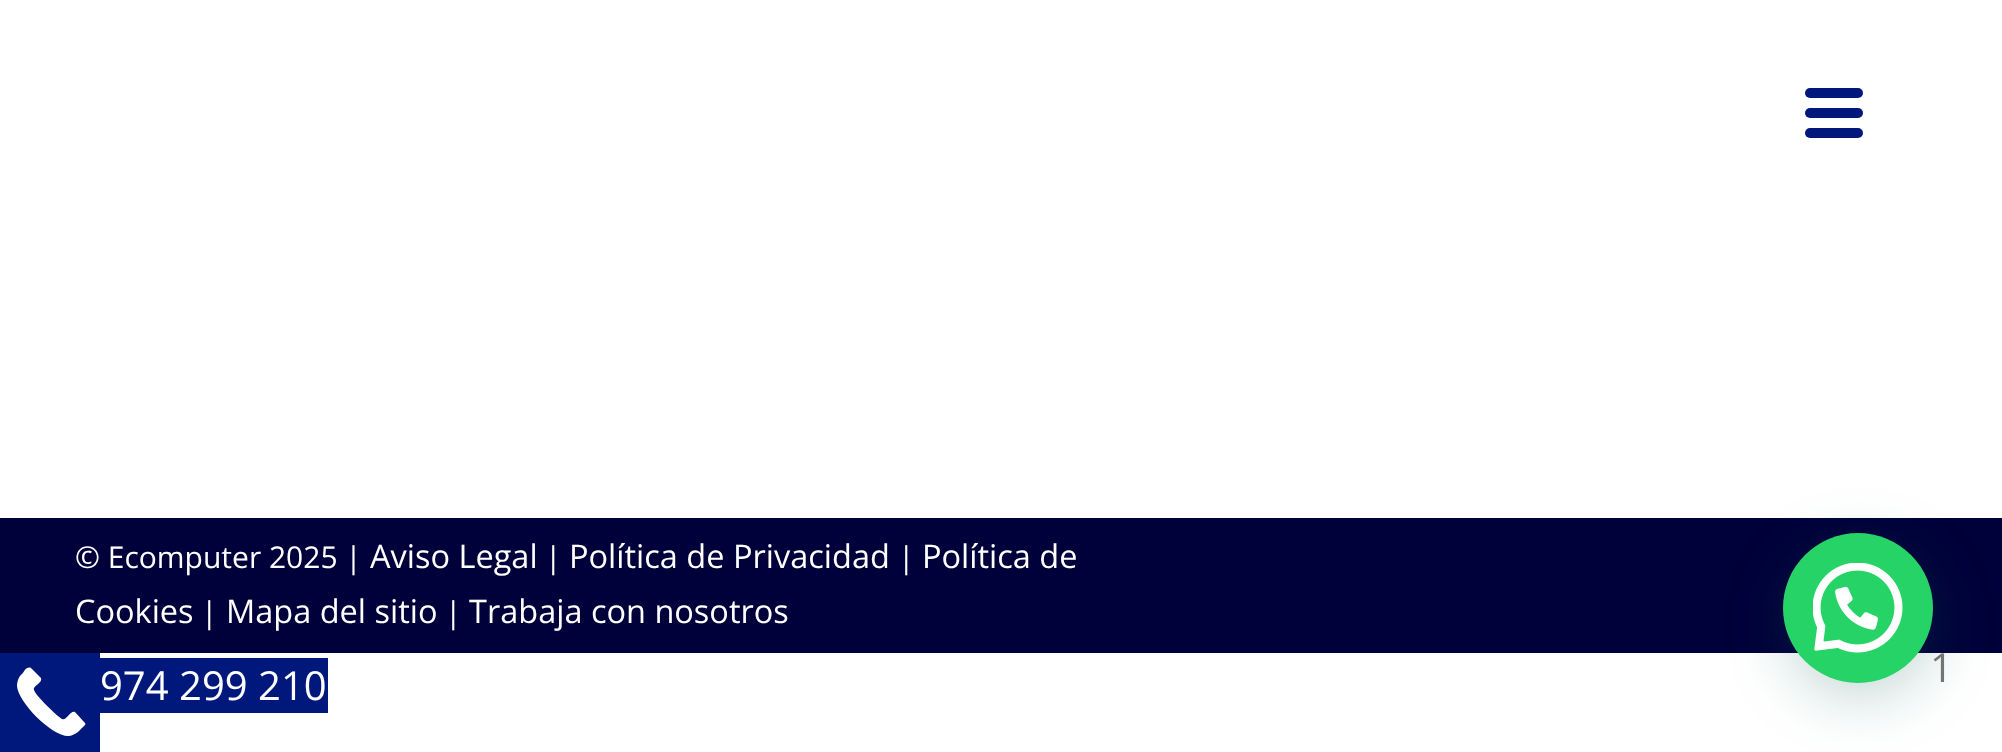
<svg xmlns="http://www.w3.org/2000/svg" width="2002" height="752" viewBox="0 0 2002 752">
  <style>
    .t1 { font: 30px Open Sans; fill: #fff; }
    .t2 { font: 32.5px Open Sans; fill: #fff; }
    .t3 { font: 40px Open Sans; fill: #747474; }
    .t4 { font: 40px Open Sans; fill: #fff; }
  </style>
  <rect width="100%" height="100%" fill="#fff"/>
  <rect x="1805" y="108" width="58" height="10" rx="5" fill="#00187b"/>
  <rect x="1805" y="88" width="58" height="10" rx="5" fill="#00187b"/>
  <rect x="1805" y="128" width="58" height="10" rx="5" fill="#00187b"/>
  <rect x="0" y="518" width="2002" height="135" fill="#00003a"/>
  <text x="75" y="568" class="t1">© Ecomputer 2025 |</text>
  <text x="370" y="568" class="t2">Aviso Legal</text>
  <text x="545" y="568" class="t1">|</text>
  <text x="569" y="568" class="t2">Política de Privacidad</text>
  <text x="898" y="568" class="t1">|</text>
  <text x="922" y="568" class="t2">Política de</text>
  <text x="75" y="623" class="t2">Cookies</text>
  <text x="201" y="623" class="t1">|</text>
  <text x="226" y="623" class="t2">Mapa del sitio</text>
  <text x="445" y="623" class="t1">|</text>
  <text x="469" y="623" class="t2">Trabaja con nosotros</text>
  <rect x="1785" y="548" width="150" height="150" rx="75" fill="#075e543d" filter="blur(30px)"/>
  <circle cx="1858" cy="608" r="75" fill="#25d366"/>
  <image x="1813" y="563" width="90" height="90" href="images/1.png"/>
  <text x="1930" y="682" class="t3">1</text>
  <rect x="100" y="658" width="228" height="55" fill="#00187b"/>
  <text x="100" y="700" class="t4">974 299 210</text>
  <rect x="0" y="653" width="100" height="99" fill="#00187b"/>
  <path d="M84 726C80 730 76 735 69 736C52 737 18 702 17 686C17 681 19 676 23 673C24 671 27 666 31 668L41 678C43 683 32 686 34 690C35 695 57 716 62 719C67 721 70 710 75 712L85 723C86 724 85 725 84 726Z" fill="#fff"/>
</svg>
